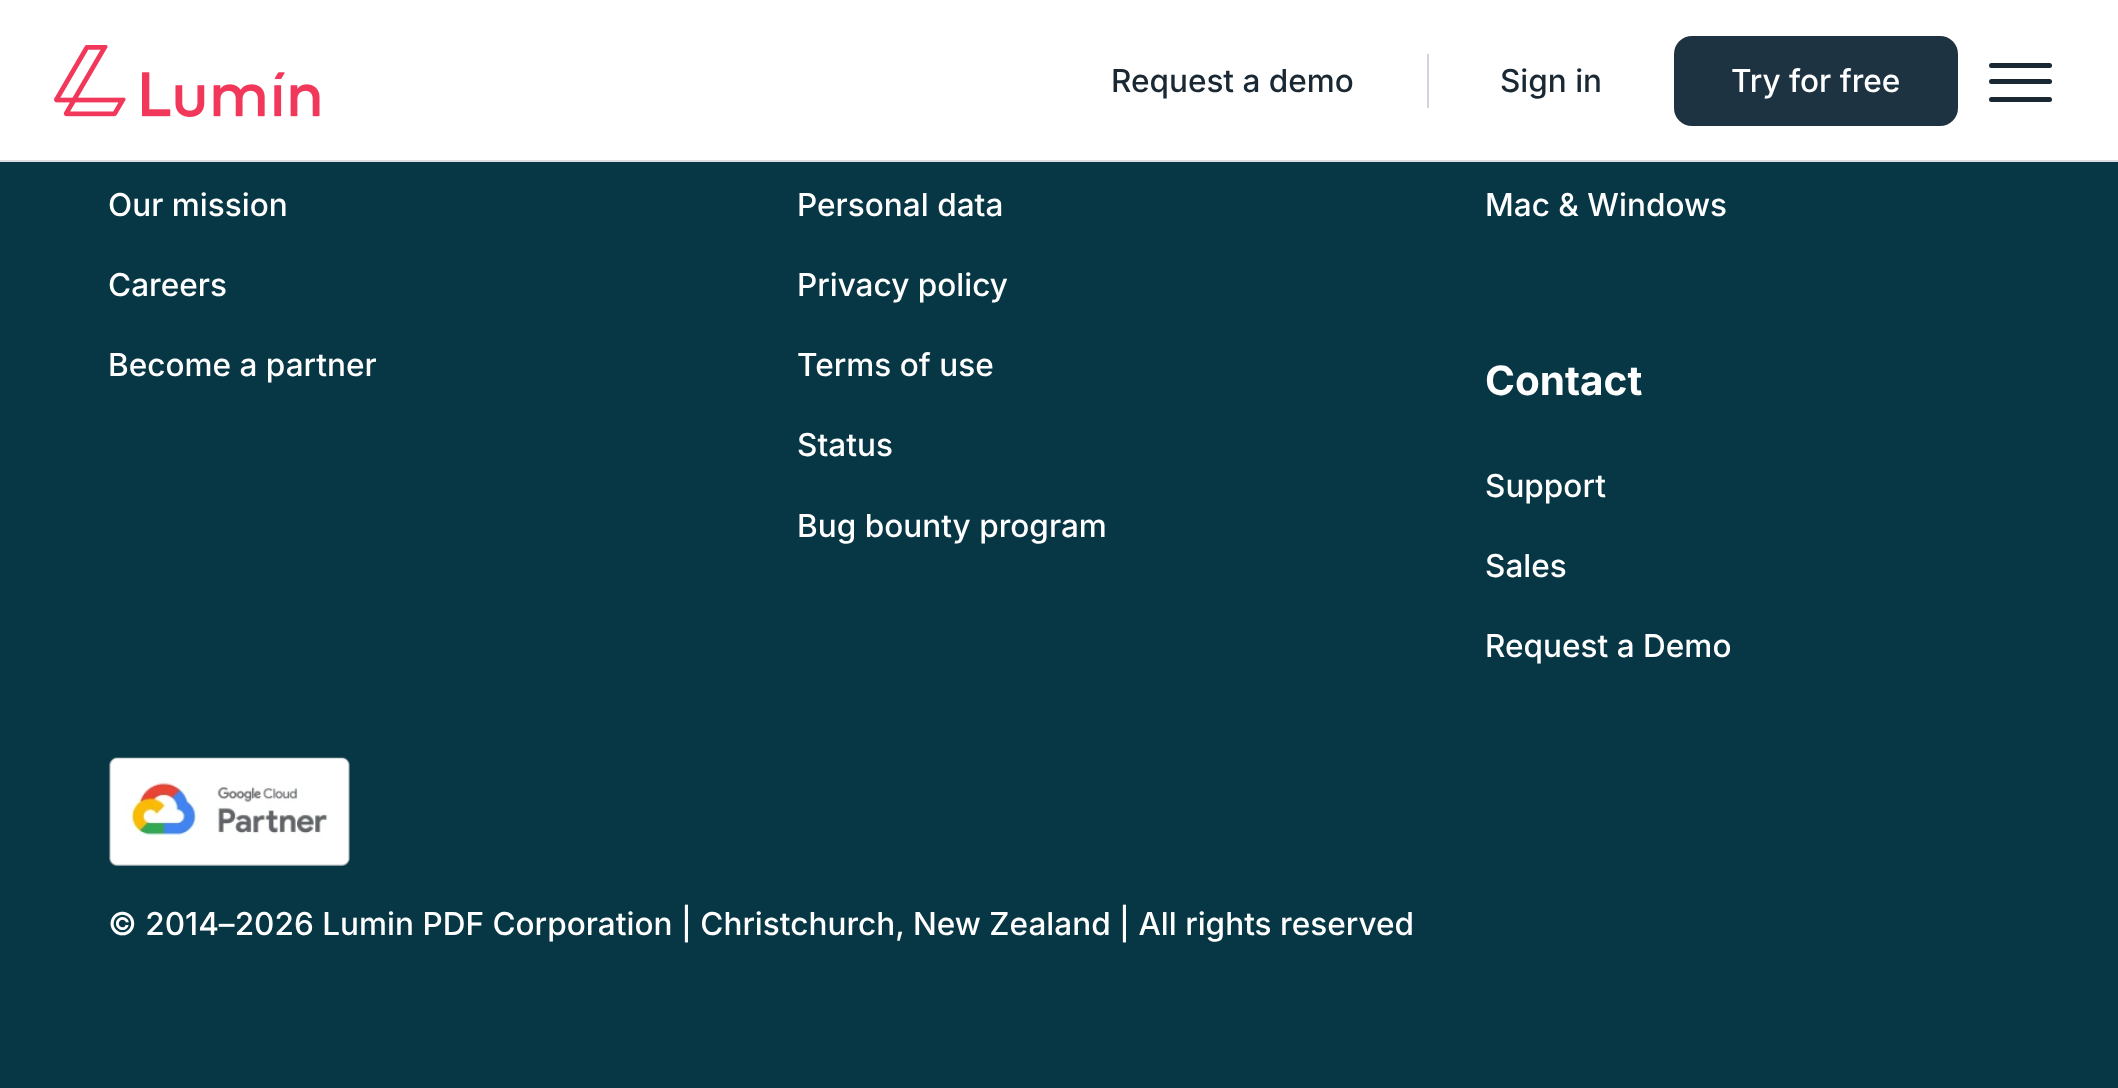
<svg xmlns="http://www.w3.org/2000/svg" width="2118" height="1088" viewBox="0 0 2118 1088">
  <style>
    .t1 { font: 500 31.5px Inter; fill: #192833; }
    .t2 { font: 500 31.5px Inter; fill: #fff; }
    .t3 { font: 500 31.5px Inter; letter-spacing: 0.03px; fill: #fff; }
    .t4 { font: bold 40.5px Inter; fill: #fff; }
  </style>
  <rect width="100%" height="100%" fill="#073644"/>
  <rect x="0" y="0" width="2118" height="160" fill="#fff"/>
  <rect x="0" y="160" width="2118" height="2" fill="#dbdde1"/>
  <image x="54" y="45" width="266" height="72" href="images/1.png"/>
  <text x="1111" y="92" class="t1">Request a demo</text>
  <rect x="1427" y="54" width="2" height="54" fill="#d0d5dd"/>
  <text x="1500" y="92" class="t1">Sign in</text>
  <rect x="1674" y="36" width="284" height="90" rx="18" fill="#1e3342"/>
  <text x="1731" y="92" class="t2">Try for free</text>
  <rect x="1989" y="63" width="63" height="5" rx="2.5" fill="#192833"/>
  <rect x="1989" y="79" width="63" height="5" rx="2.5" fill="#192833"/>
  <rect x="1989" y="97" width="63" height="5" rx="2.5" fill="#192833"/>
  <text x="108" y="216" class="t3">Our mission</text>
  <text x="108" y="296" class="t3">Careers</text>
  <text x="108" y="376" class="t3">Become a partner</text>
  <text x="797" y="216" class="t3">Personal data</text>
  <text x="797" y="296" class="t3">Privacy policy</text>
  <text x="797" y="376" class="t3">Terms of use</text>
  <text x="797" y="456" class="t3">Status</text>
  <text x="797" y="537" class="t3">Bug bounty program</text>
  <text x="1485" y="216" class="t3">Mac &amp; Windows</text>
  <text x="1485" y="395" class="t4">Contact</text>
  <text x="1485" y="497" class="t3">Support</text>
  <text x="1485" y="577" class="t3">Sales</text>
  <text x="1485" y="657" class="t3">Request a Demo</text>
  <image x="109" y="757" width="241" height="109" href="images/2.png"/>
  <text x="108" y="935" class="t3">© 2014–2026 Lumin PDF Corporation | Christchurch, New Zealand | All rights reserved</text>
</svg>
